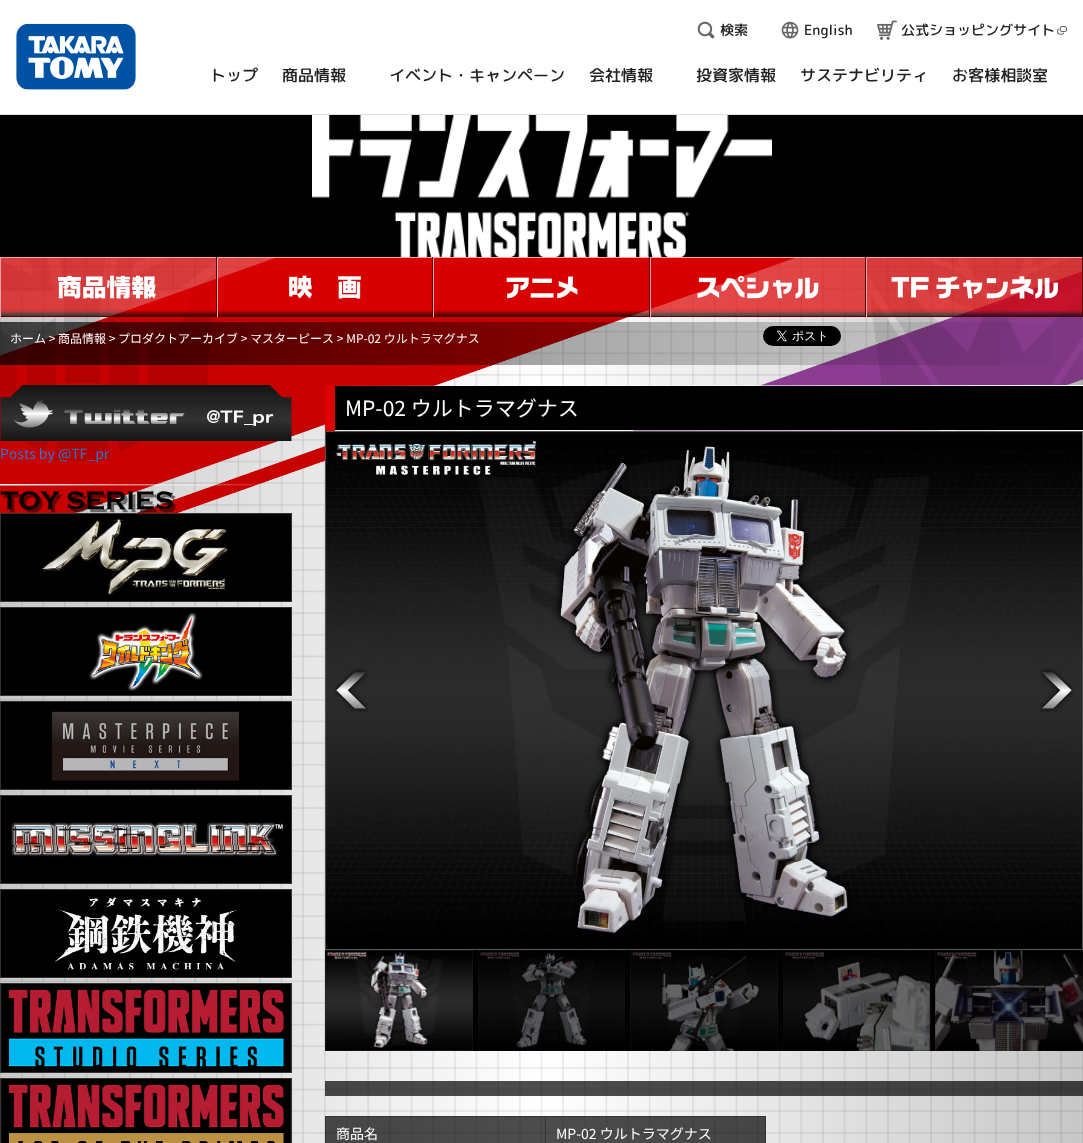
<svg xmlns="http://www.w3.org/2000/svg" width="1083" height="1143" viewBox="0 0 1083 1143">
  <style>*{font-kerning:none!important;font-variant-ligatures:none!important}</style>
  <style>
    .t1 { font: 500 14px 'Rounded Mplus 1c'; fill: #222; }
    .t2 { font: 500 16px 'Rounded Mplus 1c'; fill: #222; }
    .t3 { font: 12px Noto Sans JP; fill: #fff; }
    .t4 { font: 14px Noto Sans JP; fill: #3673c4; }
    .t5 { font: 21px Noto Sans JP; fill: #fff; }
    .t6 { font: 14px Noto Sans JP; fill: #fff; }
  </style>
  <defs>
    <linearGradient id="g1" gradientUnits="userSpaceOnUse" x1="0" y1="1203" x2="1083" y2="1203"><stop offset="0" stop-color="#c7c7c7"/><stop offset="0.5" stop-color="#fff"/><stop offset="1" stop-color="#c7c7c7"/></linearGradient>
    <linearGradient id="g2" gradientUnits="userSpaceOnUse" x1="1" y1="258" x2="1" y2="316"><stop offset="0" stop-color="#df0000" stop-opacity="0.7"/><stop offset="0.9" stop-color="#df0000" stop-opacity="0.7"/><stop offset="1" stop-color="#000" stop-opacity="0.7"/></linearGradient>
    <linearGradient id="g3" gradientUnits="userSpaceOnUse" x1="218" y1="258" x2="218" y2="316"><stop offset="0" stop-color="#df0000" stop-opacity="0.7"/><stop offset="0.9" stop-color="#df0000" stop-opacity="0.7"/><stop offset="1" stop-color="#000" stop-opacity="0.7"/></linearGradient>
    <linearGradient id="g4" gradientUnits="userSpaceOnUse" x1="434" y1="258" x2="434" y2="316"><stop offset="0" stop-color="#df0000" stop-opacity="0.7"/><stop offset="0.9" stop-color="#df0000" stop-opacity="0.7"/><stop offset="1" stop-color="#000" stop-opacity="0.7"/></linearGradient>
    <linearGradient id="g5" gradientUnits="userSpaceOnUse" x1="651" y1="258" x2="651" y2="316"><stop offset="0" stop-color="#df0000" stop-opacity="0.7"/><stop offset="0.9" stop-color="#df0000" stop-opacity="0.7"/><stop offset="1" stop-color="#000" stop-opacity="0.7"/></linearGradient>
    <linearGradient id="g6" gradientUnits="userSpaceOnUse" x1="867" y1="258" x2="867" y2="316"><stop offset="0" stop-color="#df0000" stop-opacity="0.7"/><stop offset="0.9" stop-color="#df0000" stop-opacity="0.7"/><stop offset="1" stop-color="#000" stop-opacity="0.7"/></linearGradient>
    <linearGradient id="g7" gradientUnits="userSpaceOnUse" x1="0" y1="322" x2="1083" y2="322"><stop offset="0" stop-color="#000" stop-opacity="0.7"/><stop offset="1" stop-color="#000" stop-opacity="0"/></linearGradient>
    <linearGradient id="g8" gradientUnits="userSpaceOnUse" x1="335" y1="385" x2="1083" y2="385"><stop offset="0" stop-color="#fff" stop-opacity="0"/><stop offset="1" stop-color="#fff"/></linearGradient>
    <linearGradient id="g9" gradientUnits="userSpaceOnUse" x1="335" y1="430" x2="1083" y2="430"><stop offset="0" stop-color="#fff" stop-opacity="0"/><stop offset="1" stop-color="#fff"/></linearGradient>
  </defs>
  <rect width="100%" height="100%" fill="#fff"/>
  <rect x="0" y="114" width="1083" height="1" fill="#e0e0e0"/>
  <image x="16" y="23" width="120" height="67" href="images/1.png"/>
  <image x="697" y="21" width="18" height="18" href="images/2.png"/>
  <text x="720" y="35" transform="rotate(0.1 720 35)" class="t1">検索</text>
  <image x="781" y="21" width="18" height="18" href="images/3.png"/>
  <text x="804" y="35" transform="rotate(0.1 804 35)" class="t1">English</text>
  <image x="877" y="20" width="20" height="20" href="images/4.png"/>
  <text x="901" y="35" transform="rotate(0.1 901 35)" class="t1">公式ショッピング</text>
  <text x="1013" y="35" transform="rotate(0.1 1013 35)" class="t1">サイト</text>
  <image x="1057" y="26" width="10" height="9" href="images/5.png"/>
  <text x="210" y="81" transform="rotate(0.1 210 81)" class="t2">トップ</text>
  <text x="282" y="81" transform="rotate(0.1 282 81)" class="t2">商品情報</text>
  <text x="389" y="81" transform="rotate(0.1 389 81)" class="t2">イベント・キャンペーン</text>
  <text x="589" y="81" transform="rotate(0.1 589 81)" class="t2">会社情報</text>
  <text x="696" y="81" transform="rotate(0.1 696 81)" class="t2">投資家情報</text>
  <text x="800" y="81" transform="rotate(0.1 800 81)" class="t2">サステナビリティ</text>
  <text x="952" y="81" transform="rotate(0.1 952 81)" class="t2">お客様相談室</text>
  <rect x="0" y="258" width="1083" height="885" fill="url(#g1)"/>
  <image x="0" y="258" width="1083" height="885" href="images/6.png"/>
  <image x="0" y="258" width="1083" height="255" href="images/7.png"/>
  <rect x="0" y="115" width="1083" height="142" fill="#000"/>
  <image x="312" y="115" width="460" height="142" href="images/8.png"/>
  <rect x="1" y="258" width="215" height="58" fill="url(#g2)"/>
  <rect x="0" y="257" width="1083" height="1" fill="#ffa4a4"/>
  <rect x="216" y="257" width="1" height="60" fill="#570000"/>
  <rect x="0" y="316" width="217" height="1" fill="#570000"/>
  <rect x="0" y="257" width="1" height="60" fill="#ffa4a4"/>
  <image x="58" y="275" width="98" height="24" href="images/9.png"/>
  <rect x="218" y="258" width="214" height="58" fill="url(#g3)"/>
  <rect x="432" y="257" width="1" height="60" fill="#570000"/>
  <rect x="217" y="316" width="216" height="1" fill="#570000"/>
  <rect x="217" y="257" width="1" height="60" fill="#ffa4a4"/>
  <image x="289" y="275" width="72" height="24" href="images/10.png"/>
  <rect x="434" y="258" width="215" height="58" fill="url(#g4)"/>
  <rect x="649" y="257" width="1" height="60" fill="#570000"/>
  <rect x="433" y="316" width="217" height="1" fill="#570000"/>
  <rect x="433" y="257" width="1" height="60" fill="#ffa4a4"/>
  <image x="506" y="276" width="72" height="23" href="images/11.png"/>
  <rect x="651" y="258" width="214" height="58" fill="url(#g5)"/>
  <rect x="865" y="257" width="1" height="60" fill="#570000"/>
  <rect x="650" y="316" width="216" height="1" fill="#570000"/>
  <rect x="650" y="257" width="1" height="60" fill="#ffa4a4"/>
  <image x="697" y="276" width="122" height="23" href="images/12.png"/>
  <rect x="867" y="258" width="215" height="58" fill="url(#g6)"/>
  <rect x="1082" y="257" width="1" height="60" fill="#570000"/>
  <rect x="866" y="316" width="217" height="1" fill="#570000"/>
  <rect x="866" y="257" width="1" height="60" fill="#ffa4a4"/>
  <image x="891" y="276" width="167" height="23" href="images/13.png"/>
  <rect x="0" y="322" width="1050" height="43" fill="url(#g7)"/>
  <text x="10" y="343" class="t3">ホーム &gt; 商品情報 &gt; プロダクトアーカイブ &gt; マスターピース &gt; MP-02 ウルトラマグナス</text>
  <image x="763" y="326" width="78" height="20" href="images/14.png"/>
  <image x="0" y="385" width="292" height="56" href="images/15.png"/>
  <text x="0" y="459" class="t4">Posts by @TF_pr</text>
  <image x="0" y="484" width="261" height="29" href="images/16.png"/>
  <rect x="0.5" y="513.5" width="291" height="88" fill="#000" stroke="#333"/>
  <image x="40" y="514" width="188" height="87" href="images/17.png"/>
  <rect x="0.5" y="607.5" width="291" height="88" fill="#000" stroke="#333"/>
  <image x="89" y="612" width="114" height="80" href="images/18.png"/>
  <rect x="0.5" y="701.5" width="291" height="88" fill="#000" stroke="#333"/>
  <image x="51" y="711" width="192" height="73" href="images/19.png"/>
  <rect x="0.5" y="795.5" width="291" height="88" fill="#000" stroke="#333"/>
  <image x="11" y="820" width="275" height="37" href="images/20.png"/>
  <rect x="0.5" y="889.5" width="291" height="88" fill="#000" stroke="#333"/>
  <image x="55" y="896" width="183" height="76" href="images/21.png"/>
  <rect x="0.5" y="983.5" width="291" height="89" fill="none" stroke="#333"/>
  <image x="1" y="984" width="290" height="88" href="images/22.png"/>
  <rect x="0.5" y="1078.5" width="291" height="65" fill="none" stroke="#333"/>
  <image x="1" y="1079" width="290" height="64" href="images/23.png"/>
  <rect x="325" y="385" width="10" height="46" fill="#de0000"/>
  <rect x="351" y="385" width="732" height="1" fill="url(#g8)"/>
  <rect x="335" y="386" width="748" height="44" fill="#000"/>
  <text x="345" y="416" class="t5">MP-02 ウルトラマグナス</text>
  <rect x="411" y="430" width="672" height="1" fill="url(#g9)"/>
  <image x="325" y="431" width="758" height="519" href="images/24.png"/>
  <image x="334" y="669" width="34" height="43" href="images/25.png"/>
  <image x="1040" y="669" width="34" height="43" href="images/26.png"/>
  <rect x="325" y="950" width="758" height="101" fill="#000"/>
  <image x="325" y="950" width="148" height="101" href="images/27.png"/>
  <image x="478" y="950" width="147" height="101" href="images/28.png"/>
  <image x="630" y="950" width="148" height="101" href="images/29.png"/>
  <image x="783" y="950" width="148" height="101" href="images/30.png"/>
  <image x="935" y="950" width="148" height="101" href="images/31.png"/>
  <rect x="325" y="1081" width="758" height="15" fill="#000000b3"/>
  <rect x="326" y="1117" width="439" height="26" fill="#000000b3"/>
  <rect x="765" y="1116" width="1" height="27" fill="#333"/>
  <rect x="325" y="1116" width="440" height="1" fill="#333"/>
  <rect x="325" y="1116" width="1" height="27" fill="#333"/>
  <text x="336" y="1139" class="t6">商品名</text>
  <rect x="545" y="1116" width="1" height="27" fill="#333"/>
  <text x="556" y="1139" class="t6">MP-02 ウルトラマグナス</text>
</svg>
